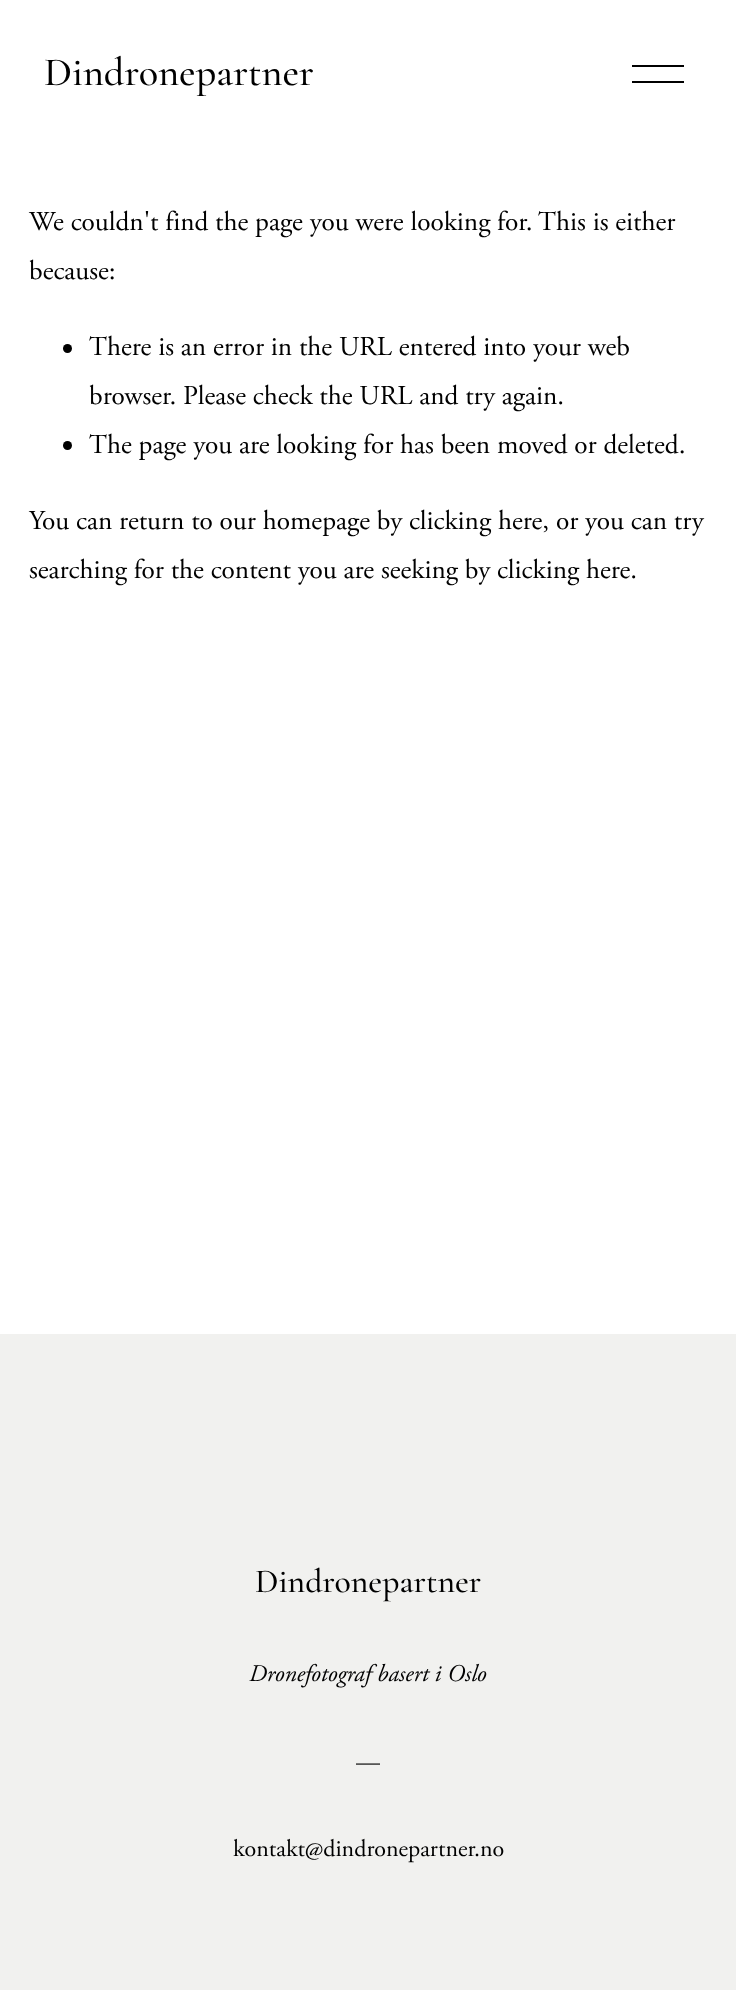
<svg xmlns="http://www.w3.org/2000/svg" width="736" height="1990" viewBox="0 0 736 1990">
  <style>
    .t1 { font: 500 40.25px Cormorant Garamond; fill: #000; }
    .t2 { font: 27.25px Adobe Garamond; fill: #000; }
    .t3 { font: 500 33.75px Cormorant Garamond; fill: #000; }
    .t4 { font: italic 24px Adobe Garamond; fill: #000; }
    .t5 { font: 24px Adobe Garamond; fill: #000; }
  </style>
  <rect width="100%" height="100%" fill="#fff"/>
  <text x="44" y="85" class="t1">Dindronepartner</text>
  <rect x="632" y="65" width="52" height="2" fill="#000"/>
  <rect x="632" y="81" width="52" height="2" fill="#000"/>
  <text x="29" y="230" class="t2">We couldn't find the page you were looking for. This is either</text>
  <text x="29" y="279" class="t2">because:</text>
  <circle cx="67.5" cy="348.5" r="4.5" fill="#000"/>
  <text x="89" y="355" class="t2">There is an error in the URL entered into your web</text>
  <text x="89" y="404" class="t2">browser. Please check the URL and try again.</text>
  <circle cx="67.5" cy="445.5" r="4.5" fill="#000"/>
  <text x="89" y="453" class="t2">The page you are looking for has been moved or deleted.</text>
  <text x="29" y="529" class="t2">You can return to our homepage by clicking here, or you can try</text>
  <text x="29" y="578" class="t2">searching for the content you are seeking by clicking here.</text>
  <rect x="0" y="1334" width="736" height="656" fill="#f1f1ef"/>
  <text x="255" y="1592" class="t3">Dindronepartner</text>
  <text x="249" y="1681" class="t4">Dronefotograf basert i Oslo</text>
  <text x="356" y="1769" class="t5">—</text>
  <text x="233" y="1856" class="t5">kontakt@dindronepartner.no</text>
</svg>
